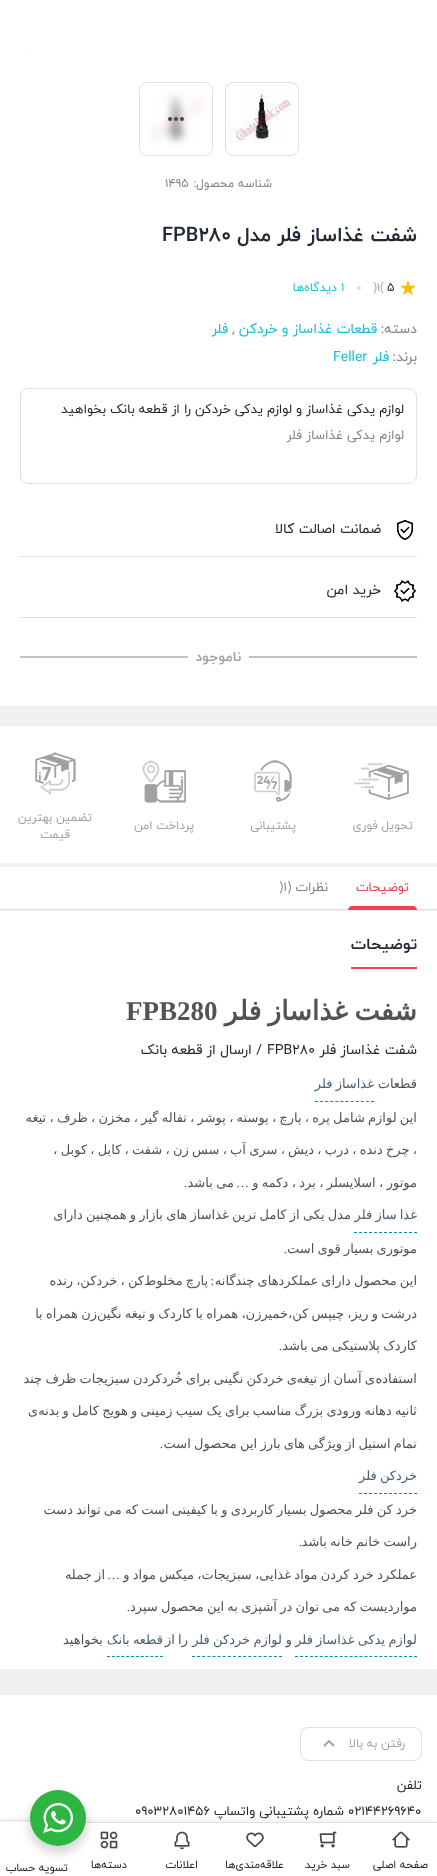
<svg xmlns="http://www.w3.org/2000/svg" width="437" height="1876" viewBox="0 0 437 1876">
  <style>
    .t1 { font: 12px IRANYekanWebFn; direction: rtl; fill: #81858b; }
    .t2 { font: 12px IRANYekanWebFn; fill: #81858b; }
    .t3 { font: bold 20px IRANYekanWebFn; direction: rtl; fill: #232933; }
    .t4 { font: bold 20px IRANYekanWebFn; fill: #232933; }
    .t5 { font: 12px IRANYekanWebFn; fill: #232933; }
    .t6 { font: 12px IRANYekanWebFn; fill: #a1a3a8; }
    .t7 { font: 12px IRANYekanWebFn; fill: #19bfd3; }
    .t8 { font: 12px IRANYekanWebFn; direction: rtl; fill: #19bfd3; }
    .t9 { font: 14px IRANYekanWebFn; direction: rtl; fill: #81858b; }
    .t10 { font: 14px IRANYekanWebFn; direction: rtl; fill: #19bfd3; }
    .t11 { font: 14px IRANYekanWebFn; fill: #81858b; }
    .t12 { font: 14px IRANYekanWebFn; fill: #19bfd3; }
    .t13 { font: 13px IRANYekanWebFn; direction: rtl; fill: #232933; }
    .t14 { font: 13px IRANYekanWebFn; direction: rtl; fill: #81858b; }
    .t15 { font: 14px IRANYekanWebFn; direction: rtl; fill: #232933; }
    .t16 { font: bold 14px IRANYekanWebFn; direction: rtl; fill: #a1a3a8; }
    .t17 { font: 12px IRANYekanWebFn; direction: rtl; fill: #a1a3a8; }
    .t18 { font: 13px IRANYekanWebFn; direction: rtl; fill: #ef4056; }
    .t19 { font: 13px IRANYekanWebFn; fill: #81858b; }
    .t20 { font: bold 16px IRANYekanWebFn; direction: rtl; fill: #232933; }
    .t21 { font: bold 27px DejaVu Sans; direction: rtl; fill: #535353; }
    .t22 { font: bold 27px Liberation Serif; fill: #535353; }
    .t23 { font: 14px IRANYekanWebFn; fill: #232933; }
    .t24 { font: 13px DejaVu Sans; direction: rtl; fill: #535353; }
    .t25 { font: 13px DejaVu Sans; direction: rtl; fill: #4a5f73; }
    .t26 { font: 13px Liberation Serif; direction: rtl; fill: #535353; }
    .t27 { font: 13px IRANYekanWebFn; fill: #232933; }
    .t28 { font: 11px IRANYekanWebFn; direction: rtl; fill: #232933; }
  </style>
  <defs>
    <clipPath id="clip1"><rect x="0" y="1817" width="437" height="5"/></clipPath>
  </defs>
  <rect width="100%" height="100%" fill="#f0f0f1"/>
  <rect x="0" y="0" width="437" height="706" fill="#fff"/>
  <rect x="24" y="51" width="2" height="2" fill="#fafafa"/>
  <rect x="225.5" y="82.5" width="73" height="73" rx="7.5" fill="none" stroke="#e0e0e2"/>
  <image x="230" y="87" width="64" height="56" href="images/1.png"/>
  <rect x="139.5" y="82.5" width="73" height="73" rx="7.5" fill="none" stroke="#e0e0e2"/>
  <image x="148" y="92" width="59" height="54" href="images/2.png"/>
  <image x="168" y="117" width="16" height="4" href="images/3.png"/>
  <text x="272" y="187" class="t1">شناسه محصول:</text>
  <text x="165" y="187" class="t2">1495</text>
  <text x="417" y="241" class="t3">شفت غذاساز فلر مدل</text>
  <text x="162" y="241" class="t4">FPB280</text>
  <image x="400" y="280" width="16" height="15" href="images/4.png"/>
  <text x="387" y="291" class="t5">5</text>
  <text x="373" y="291" class="t6">)1(</text>
  <circle cx="359" cy="288" r="2" fill="#e0e0e2"/>
  <text x="341" y="291" class="t7">1</text>
  <text x="337" y="291" class="t8">دیدگاه‌ها</text>
  <text x="417" y="333" class="t9">دسته:</text>
  <text x="377" y="333" class="t10">قطعات غذاساز و خردکن</text>
  <text x="232" y="333" class="t11">,</text>
  <text x="228" y="333" class="t10">فلر</text>
  <text x="417" y="361" class="t9">برند:</text>
  <text x="389" y="361" class="t10">فلر</text>
  <text x="333" y="361" class="t12">Feller</text>
  <rect x="20.5" y="388.5" width="396" height="95" rx="7.5" fill="none" stroke="#e0e0e2"/>
  <text x="404" y="413" class="t13">لوازم یدکی غذاساز و لوازم یدکی خردکن را از قطعه بانک بخواهید</text>
  <text x="404" y="439" class="t14">لوازم یدکی غذاساز فلر</text>
  <rect x="20" y="556" width="397" height="1" fill="#e0e0e2"/>
  <image x="397" y="520" width="16" height="20" href="images/5.png"/>
  <text x="381" y="533" class="t15">ضمانت اصالت کالا</text>
  <rect x="20" y="617" width="397" height="1" fill="#e0e0e2"/>
  <image x="394" y="580" width="22" height="22" href="images/6.png"/>
  <text x="381" y="594" class="t15">خرید امن</text>
  <rect x="20" y="656" width="397" height="2" fill="#c0c2c5"/>
  <rect x="188" y="656" width="61" height="2" fill="#fff"/>
  <text x="241" y="661" class="t16">ناموجود</text>
  <rect x="0" y="726" width="437" height="137" fill="#fff"/>
  <image x="354" y="763" width="55" height="37" href="images/7.png"/>
  <text x="413" y="829" class="t17">تحویل فوری</text>
  <image x="254" y="760" width="38" height="42" href="images/8.png"/>
  <text x="296" y="829" class="t17">پشتیبانی</text>
  <image x="142" y="760" width="44" height="43" href="images/9.png"/>
  <text x="194" y="829" class="t17">پرداخت امن</text>
  <image x="35" y="752" width="41" height="43" href="images/10.png"/>
  <text x="92" y="821" class="t17">تضمین بهترین</text>
  <text x="70" y="838" class="t17">قیمت</text>
  <rect x="0" y="867" width="437" height="42" fill="#fff"/>
  <rect x="0" y="909" width="437" height="1" fill="#e0e0e2"/>
  <text x="409" y="891" class="t18">توضیحات</text>
  <path d="M352 906H413C415 906 417 908 417 910H348C348 908 350 906 352 906Z" fill="#ef4056"/>
  <text x="328" y="891" class="t14">نظرات (</text>
  <text x="279" y="891" class="t19">)1</text>
  <rect x="0" y="911" width="437" height="758" fill="#fff"/>
  <rect x="351" y="967" width="66" height="2" fill="#ef4056"/>
  <text x="417" y="949" class="t20">توضیحات</text>
  <text x="417" y="1020" word-spacing="-2" class="t21">شفت غذاساز فلر</text>
  <text x="126" y="1020" class="t22">FPB280</text>
  <text x="417" y="1054" class="t15">شفت غذاساز فلر</text>
  <text x="267" y="1054" class="t23">FPB280</text>
  <text x="262" y="1054" class="t15">/ ارسال از قطعه بانک</text>
  <text x="417" y="1088" class="t24">قطعات</text>
  <path d="M315 1101.5H374" fill="none" stroke="#008eb2" stroke-dasharray="3 2.09"/>
  <text x="374" y="1088" word-spacing="-0.9" class="t25">غذاساز فلر</text>
  <text x="417" y="1122" word-spacing="-0.9" class="t24">این لوازم شامل پره ، پارچ ، پوسته ، پوشر ، تفاله گیر ، مخزن ، ظرف ، تیغه</text>
  <text x="417" y="1154" word-spacing="-0.9" class="t24">، چرخ دنده ، درب ، دیش ، سری آب ، سس زن ، شفت ، کابل ، کوبل ،</text>
  <text x="417" y="1187" word-spacing="-0.75" class="t24">موتور ، اسلایسلر ، برد ، دکمه و</text>
  <text x="249" y="1187" class="t26">…</text>
  <text x="234" y="1187" word-spacing="-0.75" class="t24">می باشد</text>
  <text x="187" y="1187" class="t26">.</text>
  <path d="M354 1232.5H417" fill="none" stroke="#008eb2" stroke-dasharray="3 2"/>
  <text x="417" y="1219" word-spacing="-0.9" class="t25">غذا ساز فلر</text>
  <text x="351" y="1219" word-spacing="-0.9" class="t24">مدل یکی از کامل ترین غذاساز های بازار و همچنین دارای</text>
  <text x="417" y="1253" word-spacing="-0.9" class="t24">موتوری بسیار قوی است</text>
  <text x="287" y="1253" class="t26">.</text>
  <text x="417" y="1285" word-spacing="-1" class="t24">این محصول دارای عملکردهای چندگانه</text>
  <text x="214" y="1285" class="t26">:</text>
  <text x="144" y="1285" word-spacing="-1" class="t24">کن ، خردکن، رنده</text>
  <text x="208" y="1285" word-spacing="-1" class="t24">پارچ مخلوط</text>
  <text x="97" y="1318" word-spacing="-0.9" class="t24">زن همراه با</text>
  <text x="417" y="1318" word-spacing="-0.9" class="t24">درشت و ریز، چیپس کن،خمیرزن، همراه با کاردک و تیغه نگین</text>
  <text x="417" y="1350" word-spacing="-0.9" class="t24">کاردک پلاستیکی می باشد</text>
  <text x="282" y="1350" class="t26">.</text>
  <text x="297" y="1383" word-spacing="-0.9" class="t24">ی خردکن نگینی برای خُردکردن سبزیجات ظرف چند</text>
  <text x="375" y="1383" word-spacing="-0.9" class="t24">ی آسان از تیغه</text>
  <text x="417" y="1383" class="t24">استفاده</text>
  <text x="417" y="1415" word-spacing="-0.9" class="t24">ثانیه دهانه ورودی بزرگ مناسب برای یک سیب زمینی و هویج کامل و بدنه</text>
  <text x="38" y="1415" class="t24">ی</text>
  <text x="417" y="1448" word-spacing="-0.9" class="t24">تمام استیل از ویژگی های بارز این محصول است</text>
  <text x="163" y="1448" class="t26">.</text>
  <path d="M359 1493.5H417" fill="none" stroke="#008eb2" stroke-dasharray="3 2"/>
  <text x="417" y="1480" word-spacing="-0.9" class="t25">خردکن فلر</text>
  <text x="417" y="1514" word-spacing="-0.9" class="t24">خرد کن فلر محصول بسیار کاربردی و با کیفیتی است که می تواند دست</text>
  <text x="417" y="1546" word-spacing="-0.9" class="t24">راست خانم خانه باشد</text>
  <text x="302" y="1546" class="t26">.</text>
  <text x="417" y="1579" word-spacing="-0.75" class="t24">عملکرد خرد کردن مواد غذایی، سبزیجات، میکس مواد و</text>
  <text x="120" y="1579" class="t26">…</text>
  <text x="105" y="1579" word-spacing="-0.75" class="t24">از جمله</text>
  <text x="417" y="1611" word-spacing="-0.9" class="t24">مواردیست که می توان در آشپزی به این محصول سپرد</text>
  <text x="130" y="1611" class="t26">.</text>
  <path d="M295 1656.5H417" fill="none" stroke="#008eb2" stroke-dasharray="3 1.96"/>
  <text x="417" y="1644" word-spacing="-0.9" class="t25">لوازم یدکی غذاساز فلر</text>
  <text x="292" y="1644" class="t24">و</text>
  <path d="M192 1656.5H282" fill="none" stroke="#008eb2" stroke-dasharray="3 2.12"/>
  <text x="282" y="1644" word-spacing="-0.9" class="t25">لوازم خردکن فلر</text>
  <text x="188" y="1644" word-spacing="-0.9" class="t24">را از</text>
  <path d="M107 1656.5H163" fill="none" stroke="#008eb2" stroke-dasharray="3 1.82"/>
  <text x="163" y="1644" word-spacing="-0.9" class="t25">قطعه بانک</text>
  <text x="103" y="1644" class="t24">بخواهید</text>
  <rect x="0" y="1695" width="437" height="181" fill="#fff"/>
  <rect x="300.5" y="1727.5" width="121" height="33" rx="7.5" fill="none" stroke="#e0e0e2"/>
  <text x="405" y="1747" class="t17">رفتن به بالا</text>
  <image x="323" y="1740" width="12" height="7" href="images/11.png"/>
  <text x="422" y="1789" class="t13">تلفن</text>
  <text x="348" y="1815" class="t27">02144269640</text>
  <text x="344" y="1815" class="t13">شماره پشتیبانی واتساپ</text>
  <text x="135" y="1815" class="t27">09032801456</text>
  <g clip-path="url(#clip1)">
    <rect x="0" y="1818" width="437" height="54" fill="#0000000d" filter="blur(4px)"/>
  </g>
  <rect x="85" y="1822" width="352" height="1" fill="#e0e0e2"/>
  <image x="100" y="1831" width="18" height="18" href="images/17.png"/>
  <rect x="0" y="1820" width="31" height="1" fill="#e0e0e2"/>
  <rect x="28" y="1794" width="60" height="60" rx="30" fill="#00000024" filter="blur(4px)"/>
  <circle cx="58" cy="1818" r="28" fill="#2db742"/>
  <image x="43" y="1803" width="30" height="30" href="images/12.png"/>
  <image x="392" y="1831" width="18" height="17" href="images/13.png"/>
  <text x="428" y="1868" class="t28">صفحه اصلی</text>
  <image x="319" y="1831" width="18" height="17" href="images/14.png"/>
  <text x="350" y="1868" class="t28">سبد خرید</text>
  <image x="246" y="1832" width="18" height="16" href="images/15.png"/>
  <text x="284" y="1868" class="t28">علاقه‌مندی‌ها</text>
  <image x="174" y="1831" width="16" height="19" href="images/16.png"/>
  <text x="198" y="1868" class="t28">اعلانات</text>
  <text x="127" y="1868" class="t28">دسته‌ها</text>
  <text x="68" y="1871" class="t28">تسویه حساب</text>
</svg>
